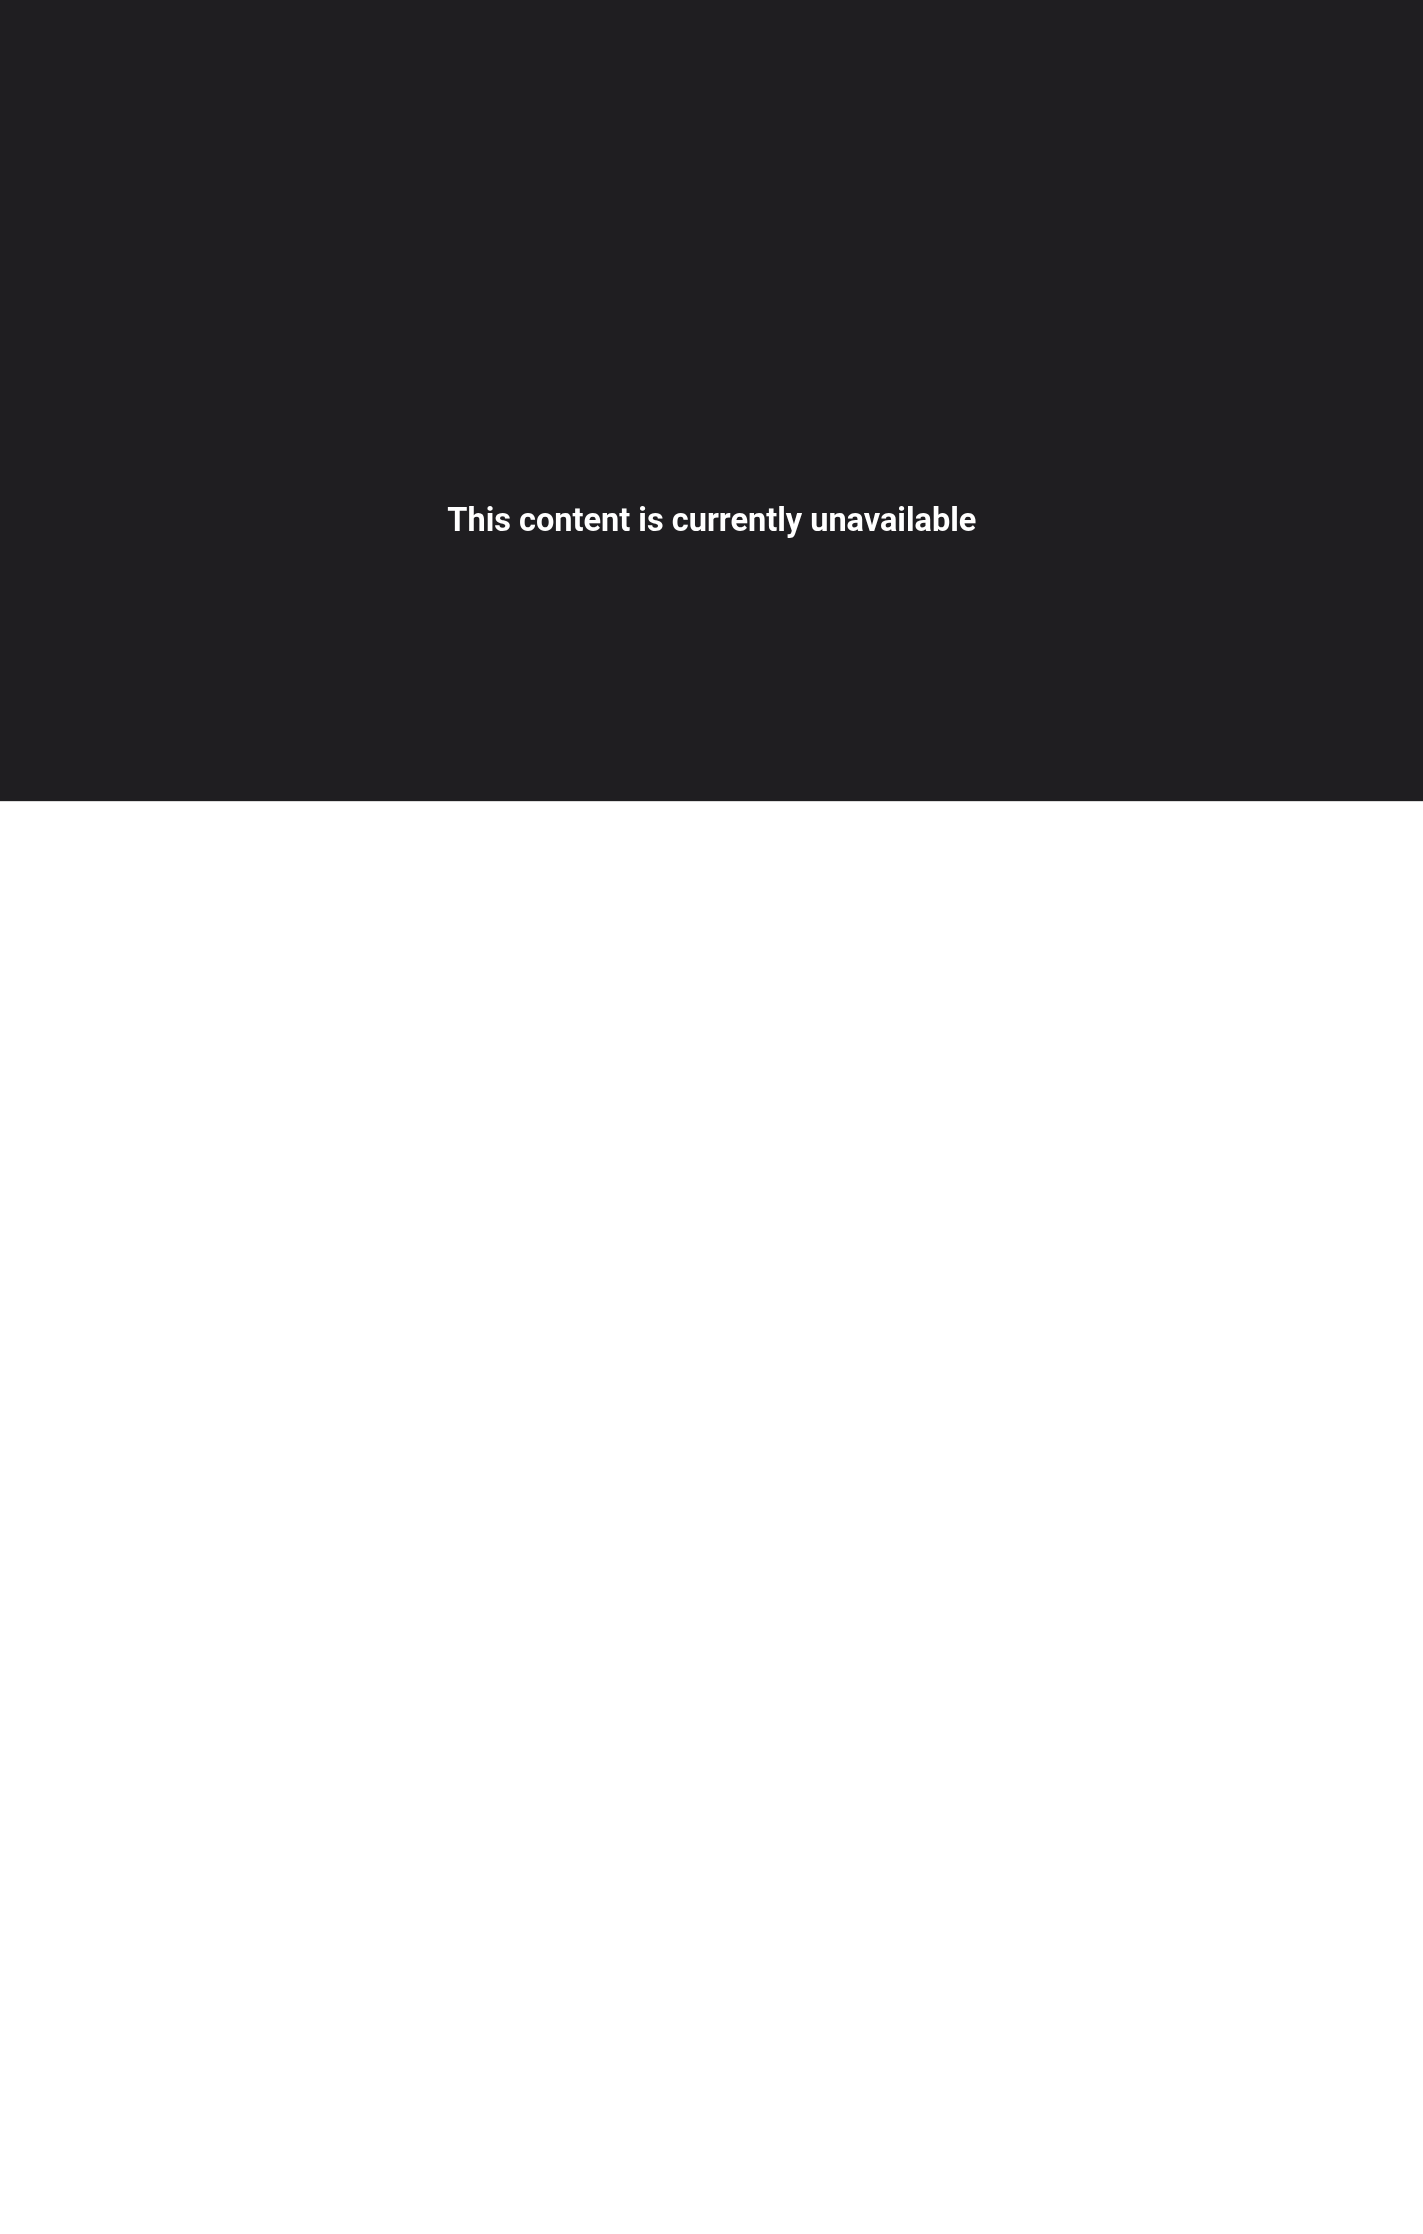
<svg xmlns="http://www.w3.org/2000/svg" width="1423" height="2234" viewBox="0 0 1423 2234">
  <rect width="100%" height="100%" fill="#fff"/>
  <image x="0" y="0" width="1423" height="802" href="images/1.png"/>
</svg>
